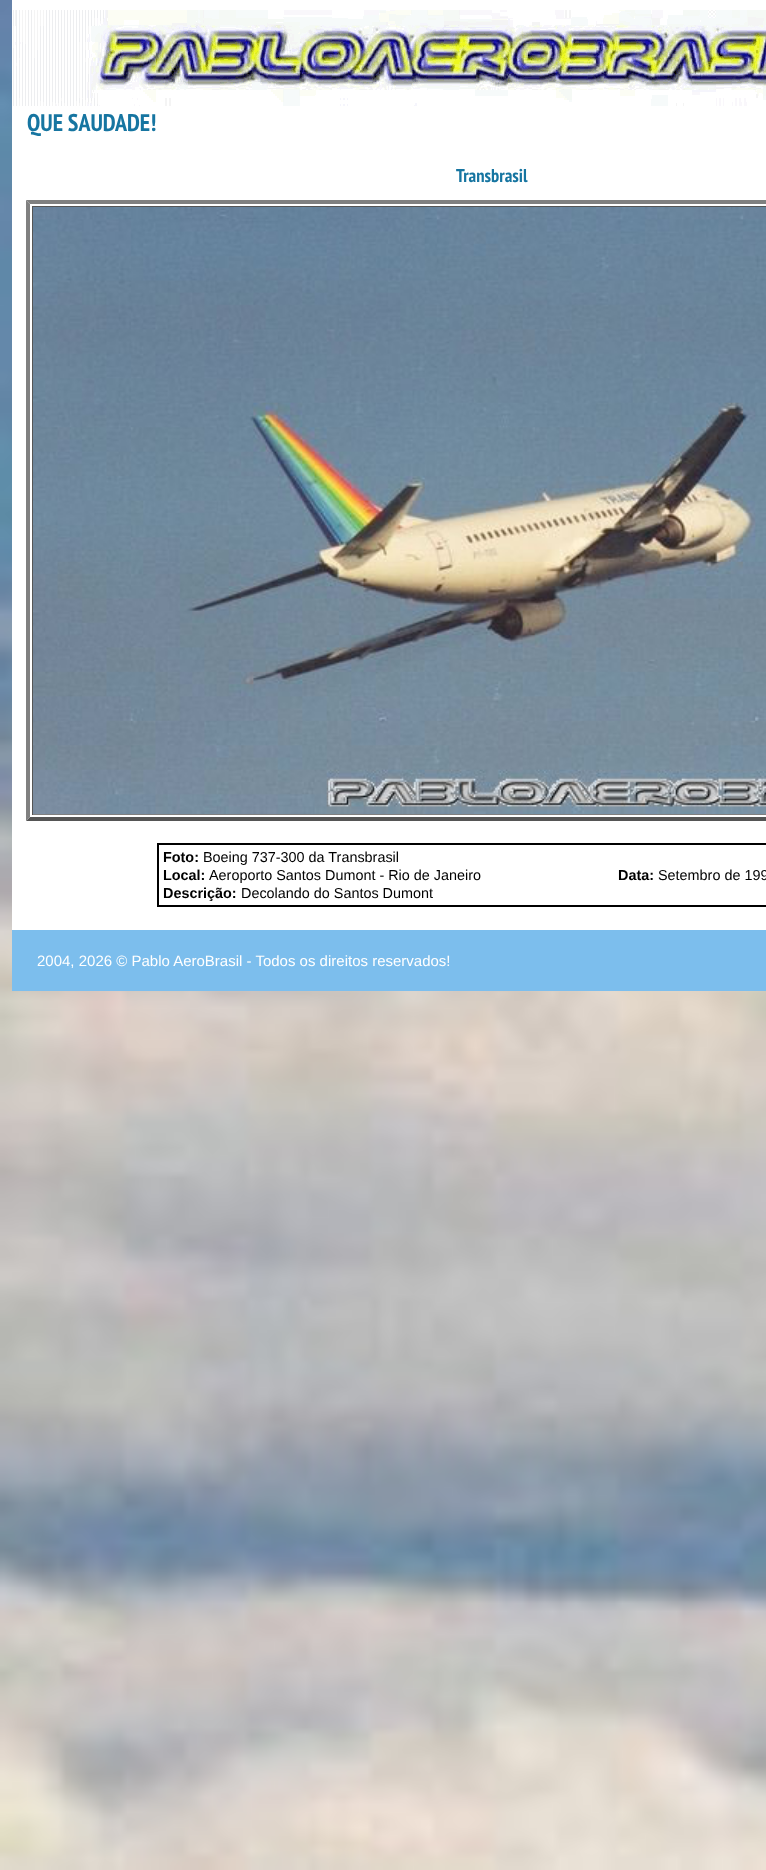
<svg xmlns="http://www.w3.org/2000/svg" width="766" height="1870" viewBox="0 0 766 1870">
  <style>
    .t1 { font: bold 24px PT Sans Narrow; fill: #1675a1; }
    .t2 { font: bold 18.5px PT Sans Narrow; fill: #1675a1; }
    .t3 { font: bold 14.4px Liberation Sans; fill: #000; }
    .t4 { font: 14.4px Liberation Sans; fill: #000; }
    .t5 { font: 15px Liberation Sans; fill: #fff; }
  </style>
  <rect width="100%" height="100%" fill="#fff"/>
  <image x="0" y="0" width="766" height="1870" href="images/1.png"/>
  <rect x="12" y="0" width="754" height="930" fill="#fff"/>
  <image x="13" y="10" width="753" height="96" href="images/2.png"/>
  <text x="27" y="131" class="t1">QUE SAUDADE!</text>
  <text x="456" y="182" class="t2">Transbrasil</text>
  <path d="M26 200H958L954 204H30Z" fill="#808080"/>
  <path d="M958 821H26L30 817H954Z" fill="#555"/>
  <path d="M26 821V200L30 204V817Z" fill="#808080"/>
  <rect x="32" y="206" width="734" height="1" fill="#555"/>
  <rect x="32" y="814" width="734" height="1" fill="#808080"/>
  <rect x="32" y="206" width="1" height="609" fill="#555"/>
  <image x="33" y="207" width="733" height="607" href="images/3.png"/>
  <rect x="158" y="844" width="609" height="62" fill="none" stroke="#000" stroke-width="2"/>
  <text x="163" y="862" class="t3">Foto:</text>
  <text x="203" y="862" class="t4">Boeing 737-300 da Transbrasil</text>
  <text x="163" y="880" class="t3">Local:</text>
  <text x="209" y="880" class="t4">Aeroporto Santos Dumont - Rio de Janeiro</text>
  <text x="618" y="880" class="t3">Data:</text>
  <text x="658" y="880" class="t4">Setembro de 199</text>
  <text x="163" y="898" class="t3">Descrição:</text>
  <text x="241" y="898" class="t4">Decolando do Santos Dumont</text>
  <rect x="12" y="930" width="754" height="61" fill="#7cbeed"/>
  <text x="37" y="966" class="t5">2004, 2026 © Pablo AeroBrasil - Todos os direitos reservados!</text>
</svg>
